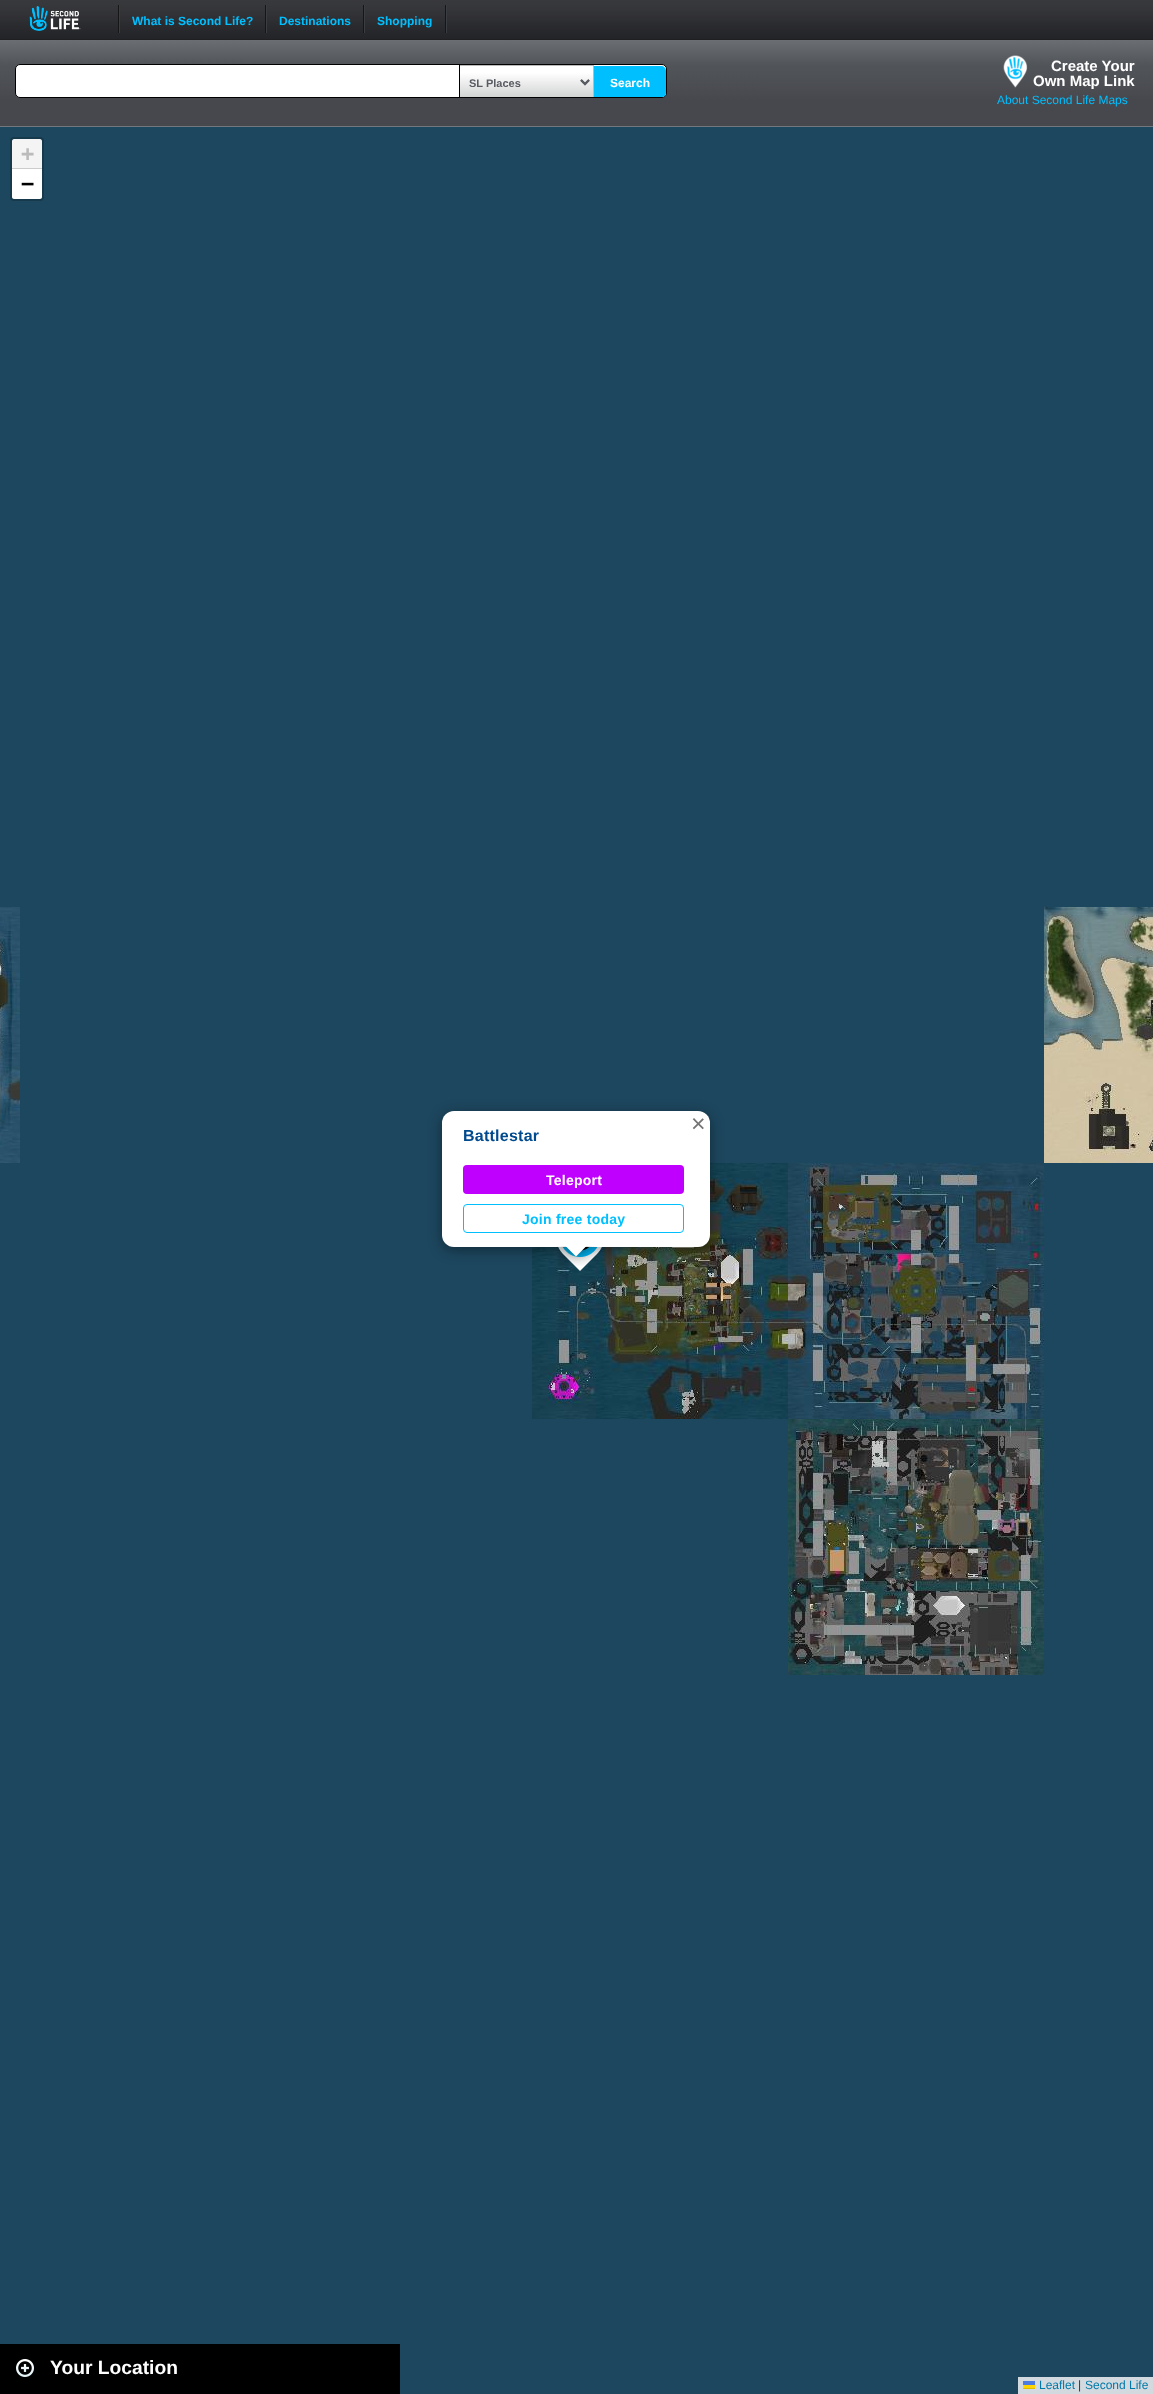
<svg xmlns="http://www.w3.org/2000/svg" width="1153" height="2394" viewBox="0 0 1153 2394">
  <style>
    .t1 { font: bold 12px Liberation Sans; fill: #00bfff; }
    .t2 { font: bold 11px Liberation Sans; fill: #595c62; }
    .t3 { font: bold 12px Liberation Sans; fill: #fff; }
    .t4 { font: bold 15px Liberation Sans; fill: #fff; }
    .t5 { font: 12px Liberation Sans; fill: #00bfff; }
    .t6 { font: bold 22px DejaVu Sans Mono; fill: #bbb; }
    .t7 { font: bold 22px DejaVu Sans Mono; fill: #000; }
    .t8 { font: 12px Liberation Sans; fill: #0078a8; }
    .t9 { font: 12px Liberation Sans; fill: #333; }
    .t10 { font: 25px Liberation Sans; fill: #757575; }
    .t11 { font: bold 16px Liberation Sans; letter-spacing: 0.25px; fill: #014a8e; }
    .t12 { font: bold 14px Liberation Sans; letter-spacing: 0.25px; fill: #fff; }
    .t13 { font: bold 14px Liberation Sans; letter-spacing: 0.25px; fill: #00bfff; }
    .t14 { font: bold 19.25px Liberation Sans; fill: #fff; }
  </style>
  <defs>
    <linearGradient id="g1" gradientUnits="userSpaceOnUse" x1="0" y1="126" x2="0" y2="40"><stop offset="0.29" stop-color="#47484d"/><stop offset="0.71" stop-color="#515559"/><stop offset="1" stop-color="#6b6e73"/></linearGradient>
    <clipPath id="clip1"><rect x="16" y="65" width="650" height="32" rx="4"/></clipPath>
    <clipPath id="clip2"><rect x="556" y="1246" width="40" height="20"/></clipPath>
    <clipPath id="clip3"><rect x="556" y="1246" width="40" height="20"/></clipPath>
  </defs>
  <rect width="100%" height="100%" fill="#1d475f"/>
  <image x="0" y="0" width="1153" height="40" href="images/1.png"/>
  <image x="29" y="6" width="52" height="25" href="images/2.png"/>
  <rect x="119" y="5" width="1" height="28" fill="#3a3e42"/>
  <rect x="118" y="5" width="1" height="28" fill="#161616"/>
  <text x="132" y="25" class="t1">What is Second Life?</text>
  <rect x="266" y="5" width="1" height="28" fill="#3a3e42"/>
  <rect x="265" y="5" width="1" height="28" fill="#161616"/>
  <text x="279" y="25" class="t1">Destinations</text>
  <rect x="364" y="5" width="1" height="28" fill="#3a3e42"/>
  <rect x="363" y="5" width="1" height="28" fill="#161616"/>
  <text x="377" y="25" class="t1">Shopping</text>
  <rect x="446" y="5" width="1" height="28" fill="#3a3e42"/>
  <rect x="445" y="5" width="1" height="28" fill="#161616"/>
  <rect x="0" y="40" width="1153" height="86" fill="url(#g1)"/>
  <rect x="0" y="126" width="1153" height="1" fill="#72777e"/>
  <rect x="15.5" y="64.5" width="651" height="33" rx="4.5" fill="#fff" stroke="#000"/>
  <image x="460" y="66" width="133" height="31" href="images/3.png"/>
  <rect x="459" y="65" width="135" height="1" fill="#bbb"/>
  <rect x="593" y="65" width="1" height="32" fill="#bbb"/>
  <rect x="459" y="65" width="1" height="32" fill="#000"/>
  <path d="M581 80L585 84L589 80" fill="none" stroke="#595c62" stroke-width="2"/>
  <text x="469" y="87" class="t2">SL Places</text>
  <g clip-path="url(#clip1)">
    <path d="M594 66H661C664 66 666 68 666 71V95C666 98 664 100 661 100H594Z" fill="#00bfff"/>
  </g>
  <text x="610" y="87" class="t3">Search</text>
  <image x="1003" y="55" width="25" height="33" href="images/4.png"/>
  <text x="1051" y="71" class="t4">Create Your</text>
  <text x="1033" y="86" class="t4">Own Map Link</text>
  <text x="997" y="104" class="t5">About Second Life Maps</text>
  <rect x="11" y="138" width="32" height="62" rx="3" fill="none" stroke="#17394c" stroke-width="2"/>
  <path d="M14 139H40C41 139 42 140 42 141V169H12V141C12 140 13 139 14 139Z" fill="#f4f4f4"/>
  <rect x="12" y="168" width="30" height="1" fill="#ccc"/>
  <text x="21" y="161" class="t6">+</text>
  <path d="M12 169H42V197C42 198 41 199 40 199H14C13 199 12 198 12 197Z" fill="#fff"/>
  <text x="21" y="191" class="t7">−</text>
  <rect x="1018" y="2377" width="135" height="17" fill="#d2dadf"/>
  <text x="1039" y="2389" class="t8">Leaflet</text>
  <rect x="1023" y="2381" width="12" height="4" fill="#4c7be1"/>
  <rect x="1023" y="2385" width="12" height="3" fill="#ffd500"/>
  <rect x="1023" y="2388" width="12" height="1" fill="#e0bc00"/>
  <text x="1078" y="2389" class="t9">|</text>
  <text x="1085" y="2389" class="t8">Second Life</text>
  <image x="0" y="907" width="20" height="256" href="images/5.png"/>
  <image x="1044" y="907" width="109" height="256" href="images/6.png"/>
  <image x="532" y="1163" width="256" height="256" href="images/7.png"/>
  <image x="788" y="1163" width="256" height="256" href="images/8.png"/>
  <image x="788" y="1419" width="256" height="256" href="images/9.png"/>
  <image x="558" y="1247" width="44" height="24" href="images/10.png"/>
  <rect x="442" y="1114" width="268" height="136" rx="12" fill="#00000066" filter="blur(7px)"/>
  <rect x="442" y="1111" width="268" height="136" rx="12" fill="#fff"/>
  <text x="691" y="1132" class="t10">×</text>
  <text x="463" y="1141" class="t11">Battlestar</text>
  <rect x="463" y="1165" width="221" height="29" rx="4" fill="#bf00ff"/>
  <text x="546" y="1185" class="t12">Teleport</text>
  <rect x="463.5" y="1204.5" width="220" height="28" rx="3.5" fill="none" stroke="#00bfff"/>
  <text x="522" y="1224" class="t13">Join free today</text>
  <g clip-path="url(#clip2)">
    <rect x="568" y="1239" width="17" height="17" fill="#00000066" filter="blur(7px)"/>
  </g>
  <g clip-path="url(#clip3)">
    <path d="M576 1232.5L588 1244.5L576 1256.5L564 1244.5Z" fill="#fff"/>
  </g>
  <rect x="0" y="2344" width="400" height="50" fill="#000"/>
  <image x="16" y="2359" width="18" height="18" href="images/11.png"/>
  <text x="50" y="2374" class="t14">Your Location</text>
</svg>
